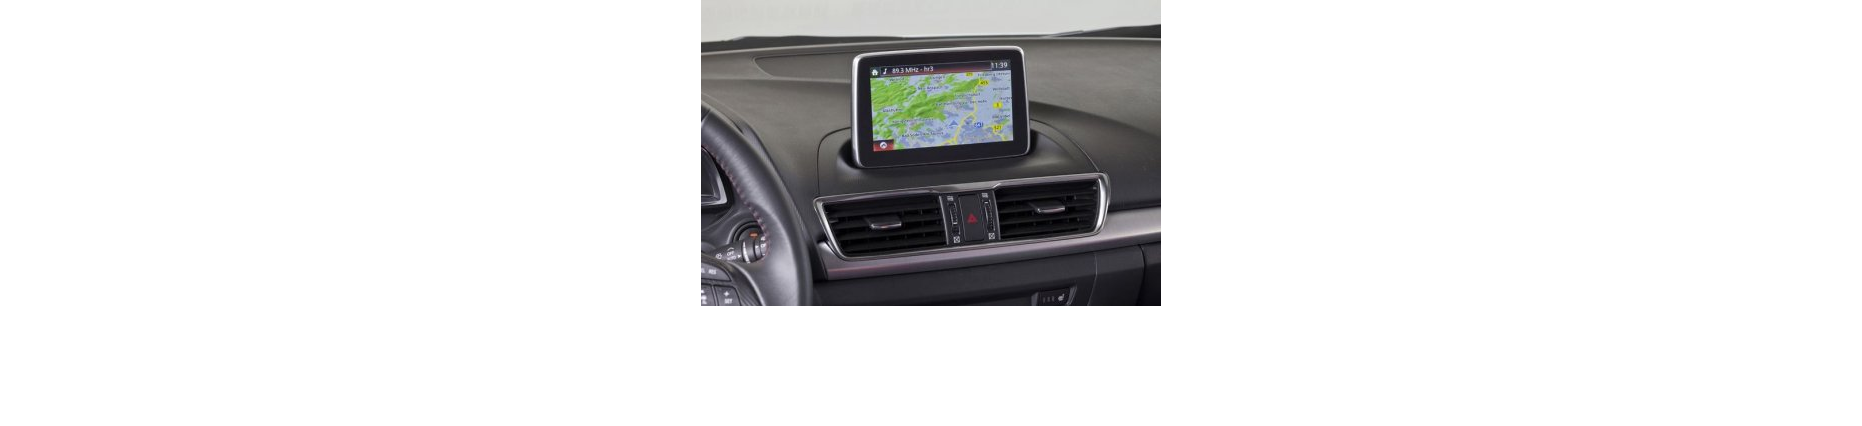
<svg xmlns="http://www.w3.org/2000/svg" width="1862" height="426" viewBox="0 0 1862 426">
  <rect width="100%" height="100%" fill="#fff"/>
  <image x="701" y="0" width="460" height="306" href="images/1.png"/>
</svg>
